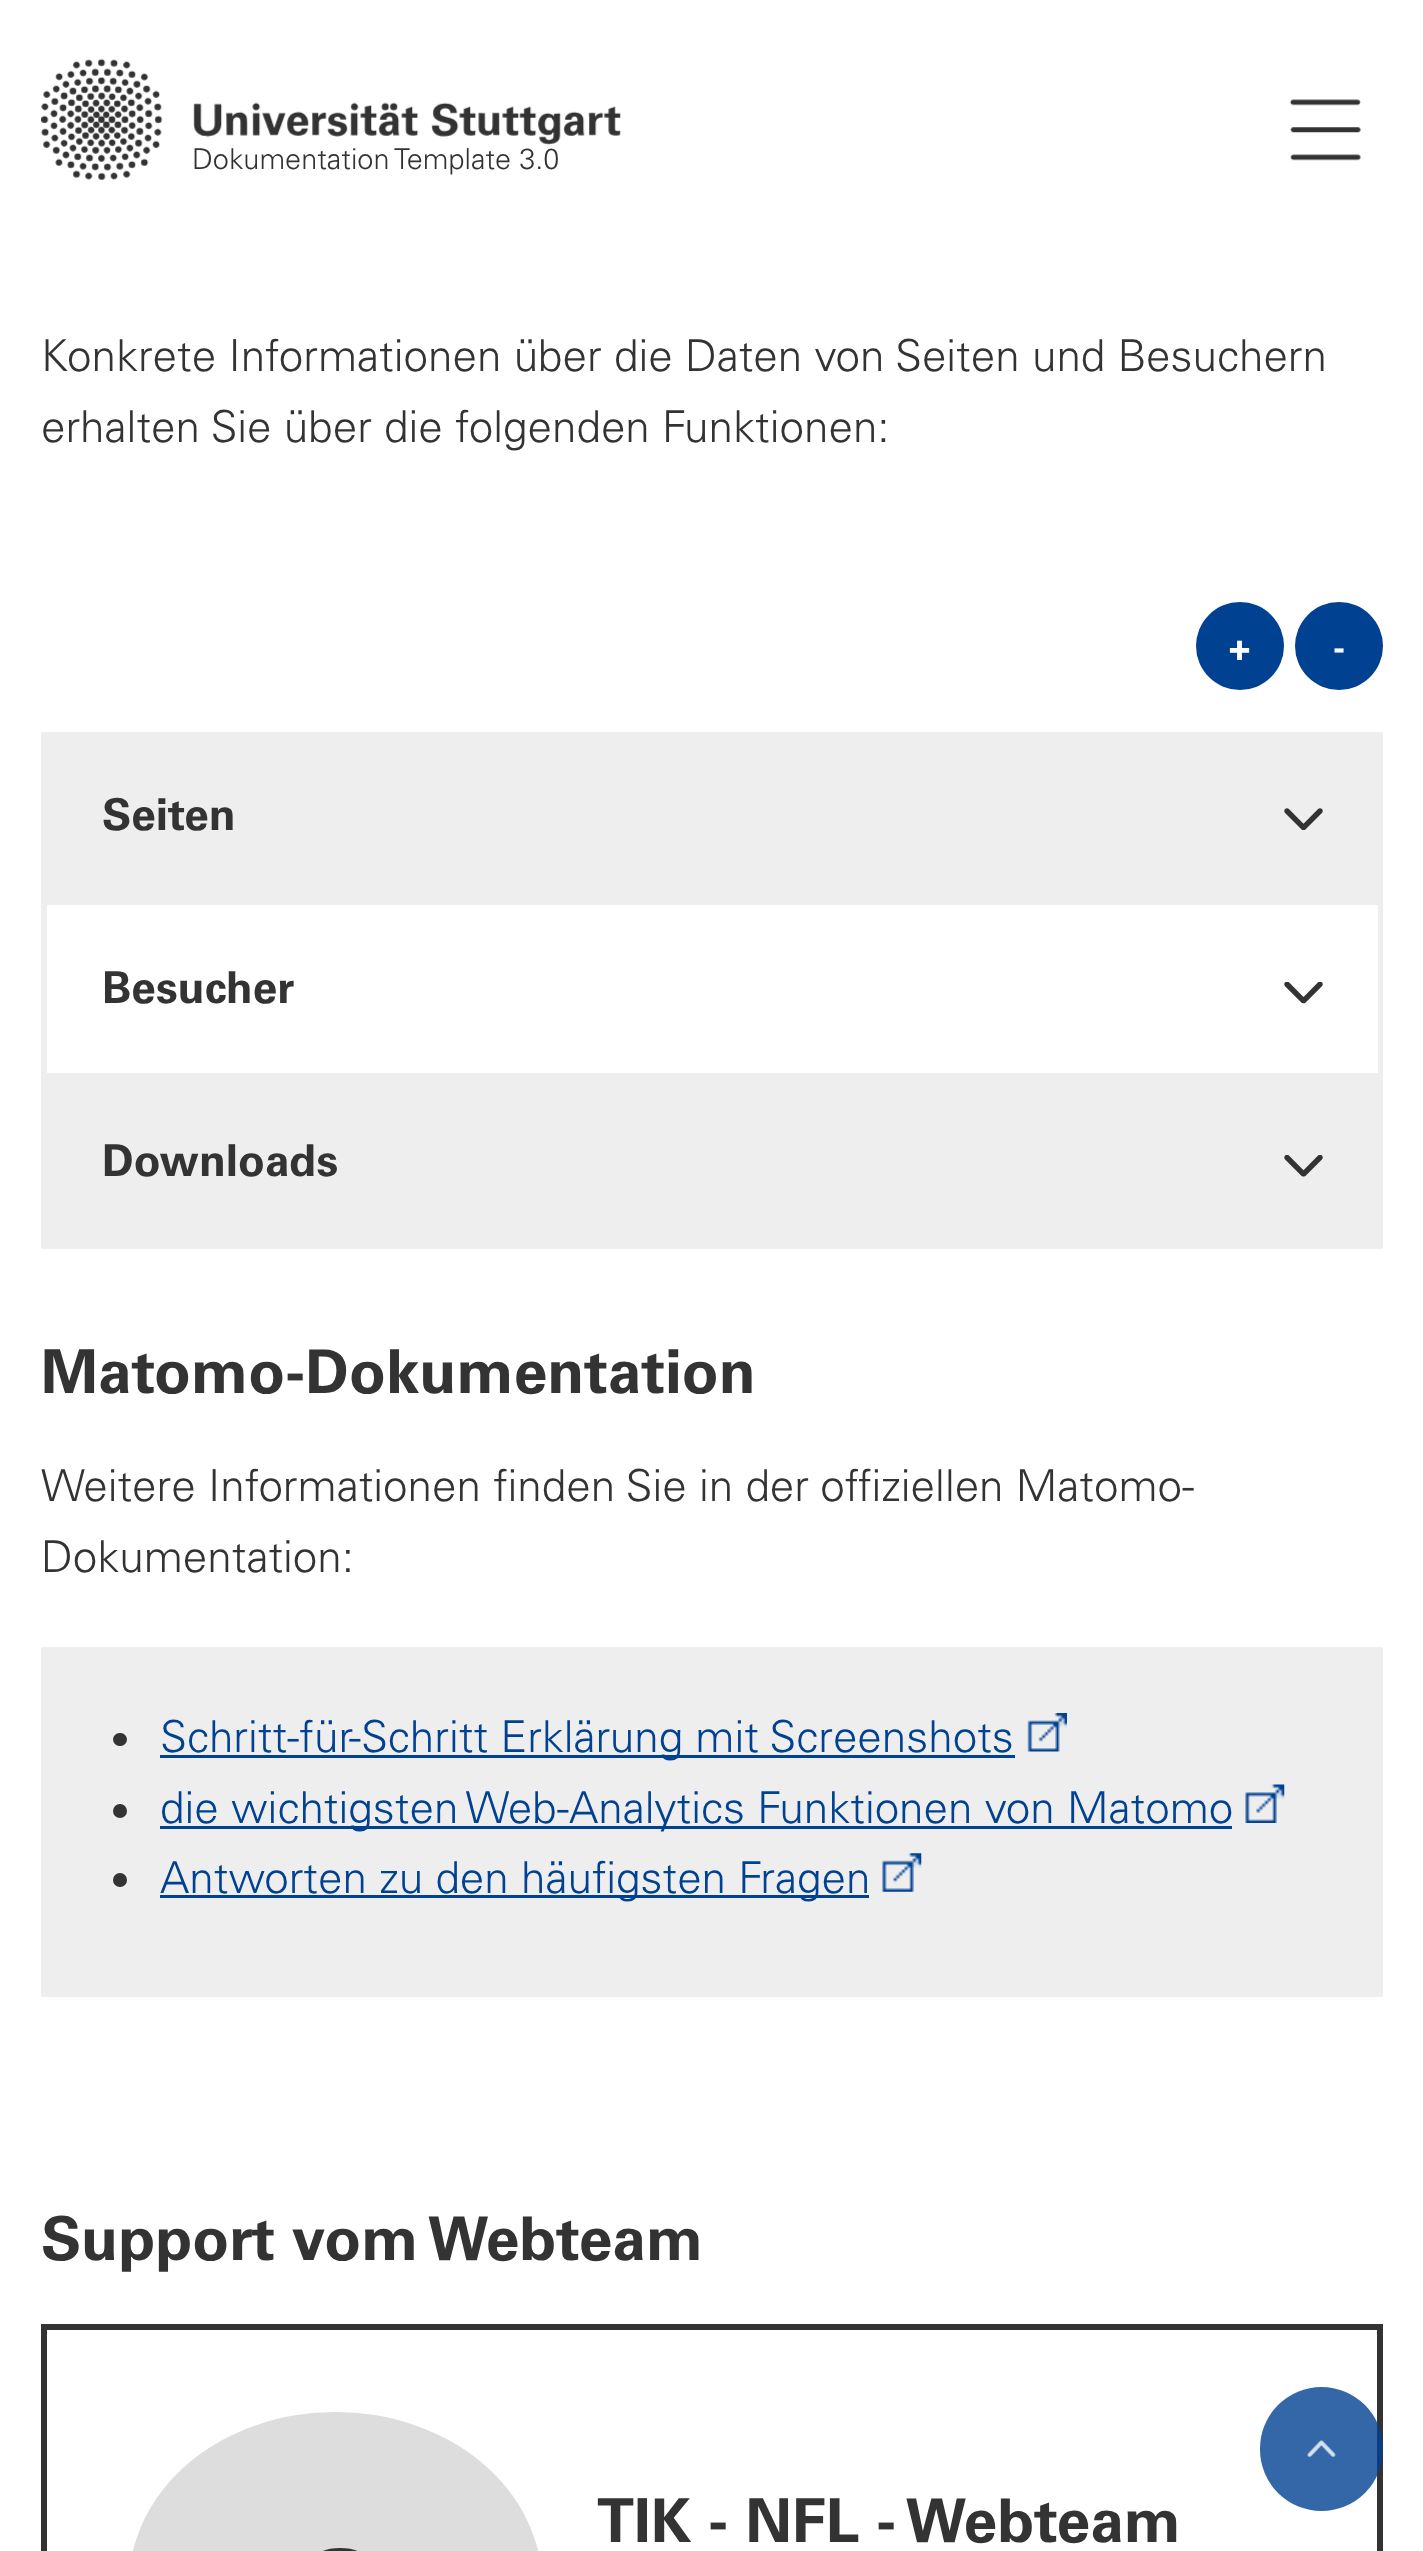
<svg xmlns="http://www.w3.org/2000/svg" width="1423" height="2551" viewBox="0 0 1423 2551">
  <style>
    .t1 { font: 300 28.9px 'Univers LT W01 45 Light'; fill: #333; }
    .t2 { font: 300 44px 'Univers LT W01 45 Light'; fill: #333; }
    .t3 { font: bold 36px 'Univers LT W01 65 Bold'; fill: #fff; }
    .t4 { font: bold 44px 'Univers LT W01 65 Bold'; fill: #333; }
    .t5 { font: bold 60.5px 'Univers LT W01 65 Bold'; fill: #333; }
    .t6 { font: 300 44px 'Univers LT W01 45 Light'; fill: #004191; }
  </style>
  <rect width="100%" height="100%" fill="#fff"/>
  <image x="41" y="58" width="580" height="122" href="images/1.png"/>
  <text x="192" y="169" class="t1">Dokumentation Template 3.0</text>
  <image x="1289" y="99" width="72" height="62" href="images/2.png"/>
  <text x="41" y="371" class="t2">Konkrete Informationen über die Daten von Seiten und Besuchern</text>
  <text x="41" y="442" class="t2">erhalten Sie über die folgenden Funktionen:</text>
  <circle cx="1240" cy="646" r="44" fill="#004191"/>
  <text x="1229" y="660" class="t3">+</text>
  <circle cx="1339" cy="646" r="44" fill="#004191"/>
  <text x="1333" y="660" class="t3">-</text>
  <rect x="41" y="732" width="1342" height="517" fill="#eee"/>
  <text x="102" y="830" class="t4">Seiten</text>
  <image x="1284" y="808" width="39" height="22" href="images/3.png"/>
  <rect x="47" y="905" width="1331" height="168" fill="#fff"/>
  <text x="102" y="1003" class="t4">Besucher</text>
  <image x="1284" y="982" width="39" height="22" href="images/4.png"/>
  <text x="102" y="1176" class="t4">Downloads</text>
  <image x="1284" y="1155" width="39" height="22" href="images/5.png"/>
  <text x="41" y="1393" class="t5">Matomo-Dokumentation</text>
  <text x="41" y="1501" class="t2">Weitere Informationen finden Sie in der offiziellen Matomo-</text>
  <text x="41" y="1572" class="t2">Dokumentation:</text>
  <rect x="41" y="1647" width="1342" height="350" fill="#eee"/>
  <rect x="113" y="1733" width="14" height="13" rx="6.5" fill="#333"/>
  <rect x="160" y="1755" width="855" height="3" fill="#004191"/>
  <text x="160" y="1752" class="t6">Schritt-für-Schritt Erklärung mit Screenshots</text>
  <image x="1027" y="1713" width="40" height="39" href="images/6.png"/>
  <circle cx="120" cy="1811" r="7" fill="#333"/>
  <rect x="160" y="1826" width="1072" height="3" fill="#004191"/>
  <text x="160" y="1823" class="t6">die wichtigsten Web-Analytics Funktionen von Matomo</text>
  <image x="1245" y="1784" width="40" height="39" href="images/7.png"/>
  <circle cx="120" cy="1880" r="7" fill="#333"/>
  <rect x="160" y="1895" width="709" height="3" fill="#004191"/>
  <text x="160" y="1893" class="t6">Antworten zu den häufigsten Fragen</text>
  <image x="882" y="1853" width="40" height="39" href="images/8.png"/>
  <text x="41" y="2260" class="t5">Support vom Webteam</text>
  <rect x="44" y="2327" width="1336" height="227" fill="none" stroke="#333" stroke-width="6"/>
  <rect x="129" y="2412" width="413" height="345" rx="206" fill="#ddd"/>
  <image x="323" y="2548" width="35" height="3" href="images/9.png"/>
  <text x="597" y="2542" class="t5">TIK - NFL - Webteam</text>
  <rect x="1260" y="2387" width="123" height="124" rx="61.5" fill="#004191cc"/>
  <image x="1307" y="2440" width="29" height="18" href="images/10.png"/>
</svg>
